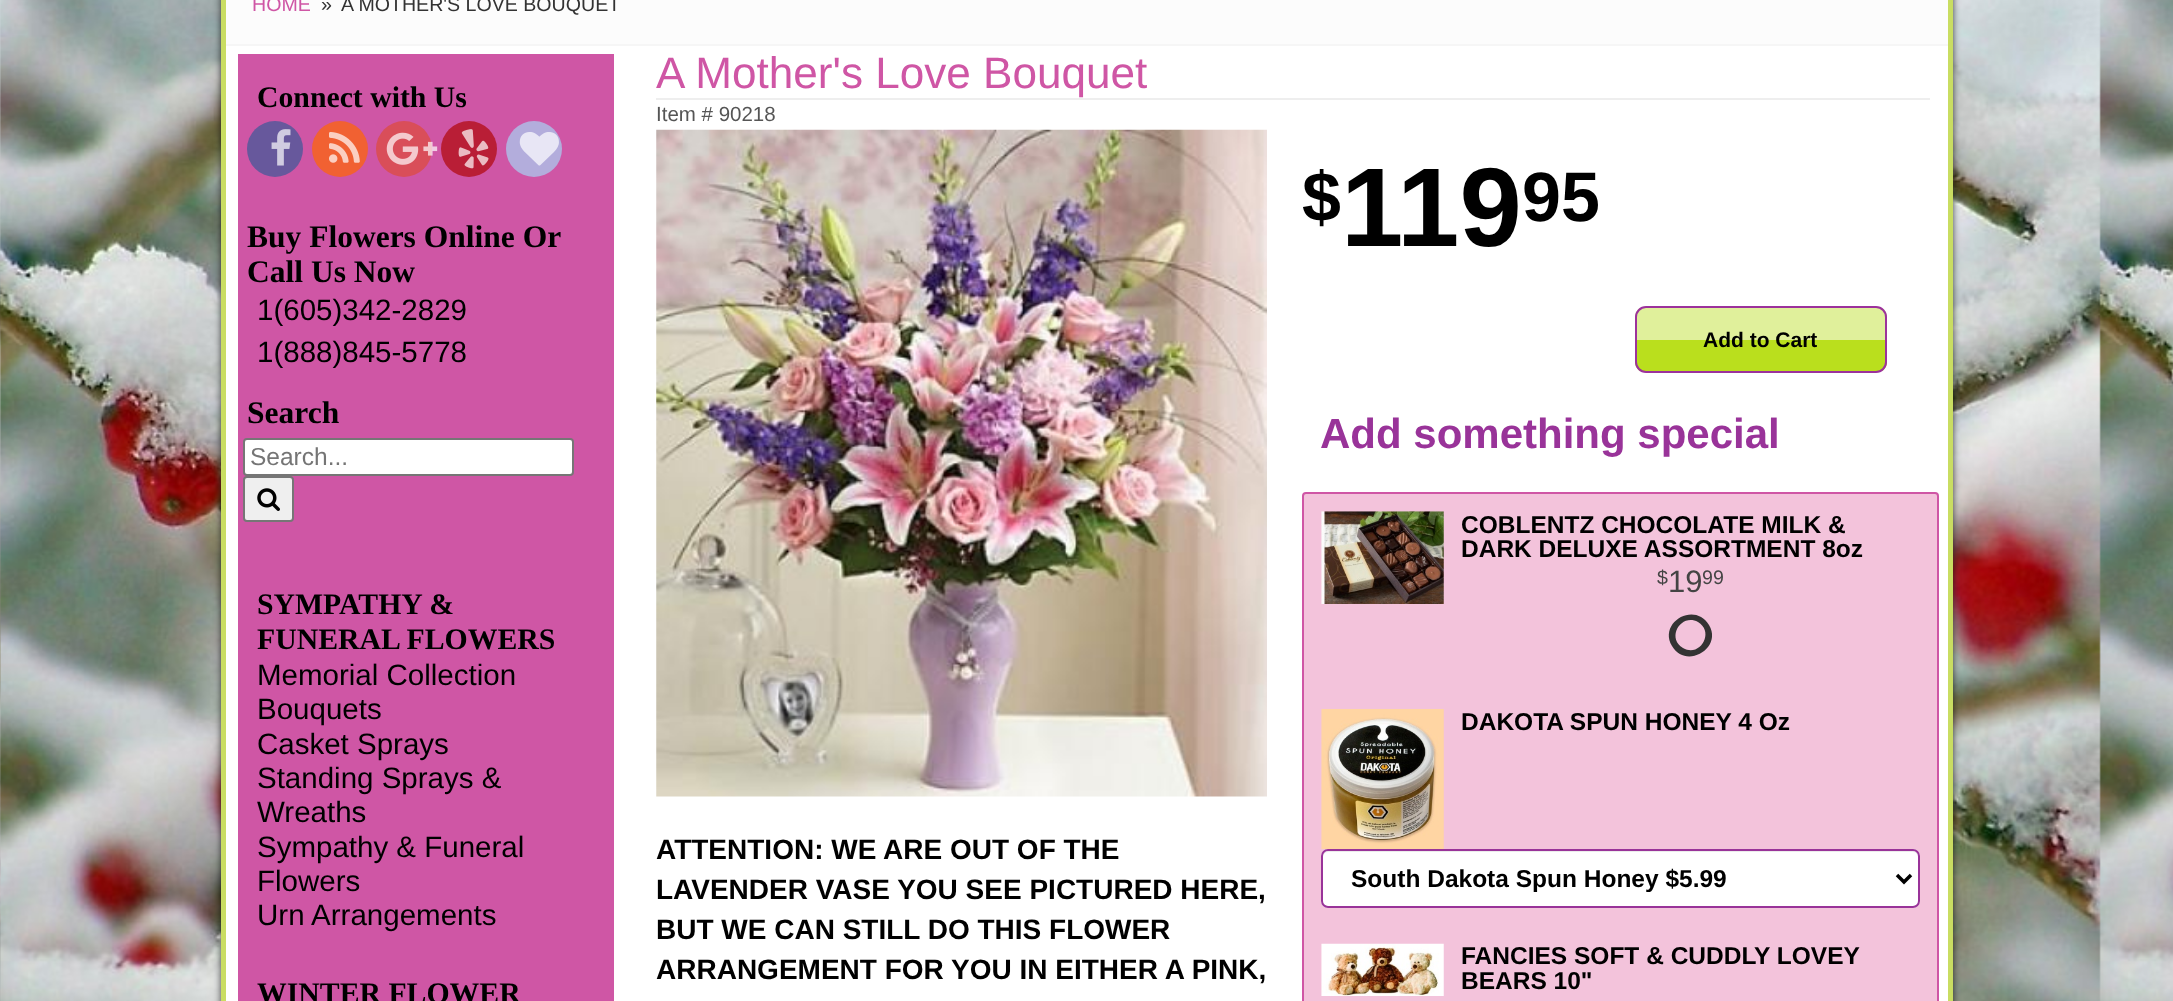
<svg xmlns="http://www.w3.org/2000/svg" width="2173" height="1001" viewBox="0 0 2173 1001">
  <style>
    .t1 { font: 19.6px Liberation Sans; fill: #cf56a5; }
    .t2 { font: 19.6px Liberation Sans; fill: #333; }
    .t3 { font: bold 29.75px Liberation Serif; fill: #000; }
    .t4 { font: bold 31.5px Liberation Serif; fill: #000; }
    .t5 { font: 29.5px Liberation Sans; fill: #000; }
    .t6 { font: 24.5px Liberation Sans; fill: #757575; }
    .t7 { font: 44.1px Liberation Sans; fill: #cf56a5; }
    .t8 { font: 20.5px Liberation Sans; fill: #555; }
    .t9 { font: bold 28px Liberation Sans; fill: #000; }
    .t10 { font: bold 70px Liberation Sans; fill: #000; }
    .t11 { font: bold 112px Liberation Sans; fill: #000; }
    .t12 { font: bold 21px Liberation Sans; fill: #000; }
    .t13 { font: bold 42px Liberation Sans; fill: #939; }
    .t14 { font: bold 24.5px Liberation Sans; fill: #000; }
    .t15 { font: 19.6px Liberation Sans; fill: #444; }
    .t16 { font: 31px Liberation Sans; fill: #444; }
  </style>
  <defs>
    <clipPath id="clip1"><rect x="1635" y="306" width="252" height="67" rx="11"/></clipPath>
  </defs>
  <rect width="100%" height="100%" fill="#fff"/>
  <image x="0" y="0" width="2173" height="1001" href="images/1.png"/>
  <rect x="221" y="-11" width="1732" height="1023" fill="#000000b3" filter="blur(3.5px)"/>
  <rect x="1948" y="0" width="5" height="1001" fill="#c9dd62"/>
  <rect x="221" y="0" width="5" height="1001" fill="#c9dd62"/>
  <rect x="226" y="0" width="1722" height="44" fill="#fcfcfc"/>
  <rect x="226" y="44" width="1722" height="2" fill="#f6f6f6"/>
  <text x="252" y="11" class="t1">HOME</text>
  <text x="321" y="11" class="t2">»</text>
  <text x="341" y="11" class="t2">A MOTHER'S LOVE BOUQUET</text>
  <rect x="226" y="46" width="1722" height="955" fill="#fff"/>
  <rect x="238" y="54" width="376" height="947" fill="#cf56a5"/>
  <text x="257" y="107" class="t3">Connect with Us</text>
  <circle cx="275" cy="149" r="28" fill="#67589c"/>
  <image x="271" y="129" width="20" height="37" href="images/2.png"/>
  <circle cx="340" cy="149" r="28" fill="#f16132"/>
  <image x="329" y="132" width="31" height="31" href="images/3.png"/>
  <circle cx="404" cy="149" r="28" fill="#d94e59"/>
  <image x="386" y="132" width="52" height="33" href="images/4.png"/>
  <circle cx="469" cy="149" r="28" fill="#b91e36"/>
  <image x="458" y="129" width="31" height="40" href="images/5.png"/>
  <circle cx="534" cy="149" r="28" fill="#b3addc"/>
  <image x="519" y="132" width="40" height="34" href="images/6.png"/>
  <text x="247" y="247" class="t4">Buy Flowers Online Or</text>
  <text x="247" y="282" class="t4">Call Us Now</text>
  <text x="257" y="320" class="t5">1(605)342-2829</text>
  <text x="257" y="362" class="t5">1(888)845-5778</text>
  <text x="247" y="423" class="t4">Search</text>
  <rect x="244" y="439" width="329" height="36" rx="3" fill="#fff" stroke="#767676" stroke-width="2"/>
  <text x="250" y="465" class="t6">Search...</text>
  <rect x="244" y="477" width="49" height="44" rx="3" fill="#efefef" stroke="#767676" stroke-width="2"/>
  <image x="257" y="488" width="23" height="23" href="images/7.png"/>
  <text x="257" y="614" class="t3">SYMPATHY &amp;</text>
  <text x="257" y="649" class="t3">FUNERAL FLOWERS</text>
  <text x="257" y="685" class="t5">Memorial Collection</text>
  <text x="257" y="719" class="t5">Bouquets</text>
  <text x="257" y="754" class="t5">Casket Sprays</text>
  <text x="257" y="788" class="t5">Standing Sprays &amp;</text>
  <text x="257" y="822" class="t5">Wreaths</text>
  <text x="257" y="857" class="t5">Sympathy &amp; Funeral</text>
  <text x="257" y="891" class="t5">Flowers</text>
  <text x="257" y="925" class="t5">Urn Arrangements</text>
  <text x="257" y="1003" class="t3">WINTER FLOWER</text>
  <rect x="656" y="98" width="1274" height="2" fill="#eee"/>
  <text x="656" y="88" class="t7">A Mother's Love Bouquet</text>
  <text x="656" y="121" class="t8">Item # 90218</text>
  <image x="656" y="129" width="611" height="668" href="images/8.png"/>
  <text x="656" y="859" class="t9">ATTENTION: WE ARE OUT OF THE</text>
  <text x="656" y="899" class="t9">LAVENDER VASE YOU SEE PICTURED HERE,</text>
  <text x="656" y="939" class="t9">BUT WE CAN STILL DO THIS FLOWER</text>
  <text x="656" y="979" class="t9">ARRANGEMENT FOR YOU IN EITHER A PINK,</text>
  <text x="1302" y="221" class="t10">$</text>
  <text x="1341" y="246" class="t11">119</text>
  <text x="1522" y="221" class="t10">95</text>
  <g clip-path="url(#clip1)">
    <rect x="1635" y="308" width="252" height="32" fill="#e0f09b"/>
    <rect x="1635" y="340" width="252" height="31" fill="#badf1d"/>
  </g>
  <rect x="1636" y="307" width="250" height="65" rx="10" fill="none" stroke="#9c329c" stroke-width="2"/>
  <text x="1703" y="347" class="t12">Add to Cart</text>
  <text x="1320" y="448" class="t13">Add something special</text>
  <rect x="1303" y="493" width="635" height="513" rx="3" fill="#f3c3db" stroke="#cf56a5" stroke-width="2"/>
  <image x="1321" y="511" width="123" height="93" href="images/9.png"/>
  <text x="1461" y="533" class="t14">COBLENTZ CHOCOLATE MILK &amp;</text>
  <text x="1461" y="557" class="t14">DARK DELUXE ASSORTMENT 8oz</text>
  <text x="1657" y="584" class="t15">$</text>
  <text x="1668" y="592" class="t16">19</text>
  <text x="1702" y="584" class="t15">99</text>
  <path d="M1698 622C1681 613 1666 638 1683 648C1700 658 1715 632 1698 622ZM1709 625C1723 648 1686 670 1672 646C1658 622 1695 601 1709 625Z" fill="#333"/>
  <image x="1321" y="709" width="123" height="140" href="images/10.png"/>
  <text x="1461" y="730" class="t14">DAKOTA SPUN HONEY 4 Oz</text>
  <rect x="1321" y="849" width="599" height="59" rx="7" fill="#fff"/>
  <path d="M1328 852H1913C1916 852 1918 855 1918 858V856C1918 853 1916 851 1913 851H1328C1325 851 1323 853 1323 856V858C1323 855 1325 852 1328 852Z" fill="#ececec"/>
  <rect x="1322" y="850" width="597" height="57" rx="6" fill="none" stroke="#939" stroke-width="2"/>
  <path d="M1897 875L1904 882L1911 875" fill="none" stroke="#000" stroke-width="3.5"/>
  <text x="1351" y="887" class="t14">South Dakota Spun Honey $5.99</text>
  <image x="1321" y="943" width="123" height="53" href="images/11.png"/>
  <text x="1461" y="964" class="t14">FANCIES SOFT &amp; CUDDLY LOVEY</text>
  <text x="1461" y="989" class="t14">BEARS 10"</text>
</svg>
